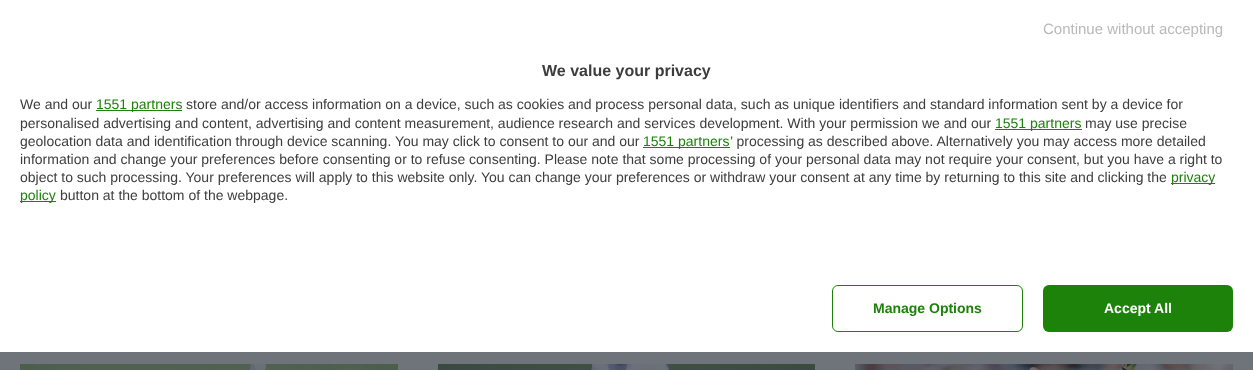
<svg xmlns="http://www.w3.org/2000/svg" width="1253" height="370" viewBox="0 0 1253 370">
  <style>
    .t1 { font: 15px Liberation Sans; fill: #bab9b9; }
    .t2 { font: bold 16px Liberation Sans; fill: #3d3d3d; }
    .t3 { font: 14px Liberation Sans; fill: #3d3d3d; }
    .t4 { font: 14px Liberation Sans; fill: #1c820a; }
    .t5 { font: bold 14px Liberation Sans; fill: #1c820a; }
    .t6 { font: bold 14px Liberation Sans; fill: #fff; }
  </style>
  <rect width="100%" height="100%" fill="#6f747b"/>
  <rect x="0" y="0" width="1253" height="352" fill="#fff"/>
  <text x="1043" y="34" class="t1">Continue without accepting</text>
  <text x="542" y="76" class="t2">We value your privacy</text>
  <text x="20" y="109" class="t3">We and our</text>
  <rect x="96" y="110" width="86" height="1" fill="#1c820a"/>
  <text x="96" y="109" class="t4">1551 partners</text>
  <text x="186" y="109" class="t3">store and/or access information on a device, such as cookies and process personal data, such as unique identifiers and standard information sent by a device for</text>
  <text x="20" y="128" class="t3">personalised advertising and content, advertising and content measurement, audience research and services development. With your permission we and our</text>
  <rect x="995" y="129" width="87" height="1" fill="#1c820a"/>
  <text x="995" y="128" class="t4">1551 partners</text>
  <text x="1085" y="128" class="t3">may use precise</text>
  <text x="20" y="146" class="t3">geolocation data and identification through device scanning. You may click to consent to our and our</text>
  <rect x="643" y="147" width="87" height="1" fill="#1c820a"/>
  <text x="643" y="146" class="t4">1551 partners</text>
  <text x="730" y="146" class="t3">’ processing as described above. Alternatively you may access more detailed</text>
  <text x="20" y="164" class="t3">information and change your preferences before consenting or to refuse consenting. Please note that some processing of your personal data may not require your consent, but you have a right to</text>
  <text x="20" y="182" class="t3">object to such processing. Your preferences will apply to this website only. You can change your preferences or withdraw your consent at any time by returning to this site and clicking the</text>
  <rect x="1171" y="183" width="44" height="1" fill="#1c820a"/>
  <text x="1171" y="182" class="t4">privacy</text>
  <rect x="20" y="201" width="36" height="1" fill="#1c820a"/>
  <text x="20" y="200" class="t4">policy</text>
  <text x="60" y="200" class="t3">button at the bottom of the webpage.</text>
  <rect x="832.5" y="285.5" width="190" height="46" rx="5.5" fill="none" stroke="#1c820a"/>
  <text x="873" y="313" class="t5">Manage Options</text>
  <rect x="1043" y="285" width="190" height="47" rx="6" fill="#1c820a"/>
  <text x="1104" y="313" class="t6">Accept All</text>
  <image x="20" y="364" width="378" height="6" href="images/1.png"/>
  <image x="438" y="364" width="377" height="6" href="images/2.png"/>
  <image x="855" y="364" width="378" height="6" href="images/3.png"/>
</svg>
